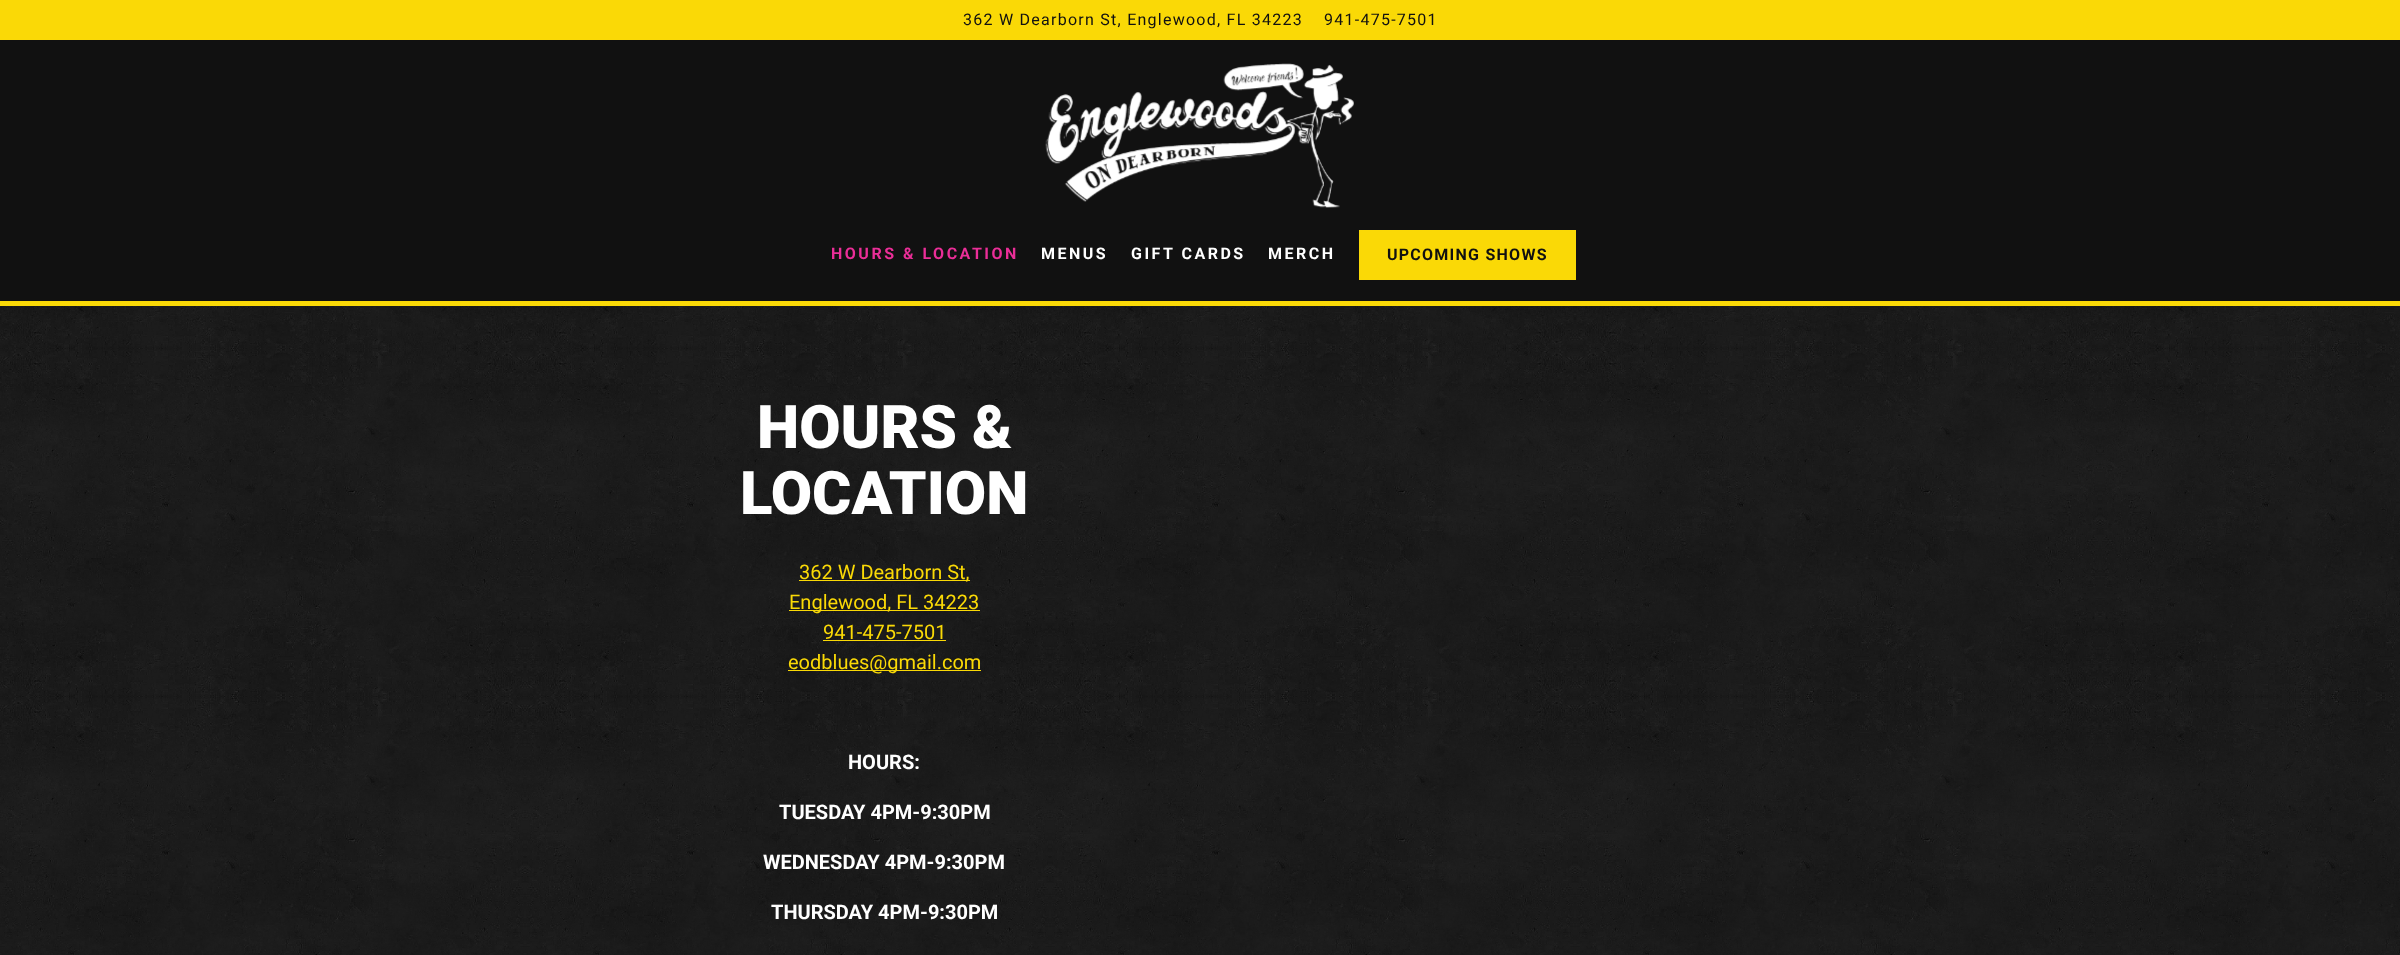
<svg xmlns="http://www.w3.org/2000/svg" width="2400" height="955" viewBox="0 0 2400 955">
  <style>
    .t1 { font: 16px Roboto; letter-spacing: 1.25px; fill: #111; }
    .t2 { font: bold 16px Roboto; letter-spacing: 2.5px; fill: #eb2e98; }
    .t3 { font: bold 16px Roboto; letter-spacing: 2.5px; fill: #fff; }
    .t4 { font: bold 16px Roboto; letter-spacing: 1.25px; fill: #111; }
    .t5 { font: 900 60px Roboto; fill: #fff; }
    .t6 { font: 20px Roboto; fill: #fad906; }
    .t7 { font: bold 20px Roboto; fill: #fff; }
  </style>
  <rect width="100%" height="100%" fill="#fff"/>
  <image x="0" y="306" width="2400" height="649" href="images/1.png"/>
  <rect x="0" y="0" width="2400" height="40" fill="#fad906"/>
  <text x="963" y="25" class="t1">362 W Dearborn St, Englewood, FL 34223</text>
  <text x="1324" y="25" class="t1">941-475-7501</text>
  <rect x="0" y="40" width="2400" height="261" fill="#111"/>
  <rect x="0" y="301" width="2400" height="5" fill="#fad906"/>
  <image x="1045" y="63" width="309" height="145" href="images/2.png"/>
  <text x="831" y="259" class="t2">HOURS &amp; LOCATION</text>
  <text x="1041" y="259" class="t3">MENUS</text>
  <text x="1131" y="259" class="t3">GIFT CARDS</text>
  <text x="1268" y="259" class="t3">MERCH</text>
  <rect x="1359" y="230" width="217" height="50" fill="#fad906"/>
  <text x="1387" y="260" class="t4">UPCOMING SHOWS</text>
  <text x="757" y="448" class="t5">HOURS &amp;</text>
  <text x="740" y="514" class="t5">LOCATION</text>
  <rect x="799" y="580" width="171" height="1" fill="#fad906"/>
  <text x="799" y="579" class="t6">362 W Dearborn St,</text>
  <rect x="789" y="610" width="191" height="1" fill="#fad906"/>
  <text x="789" y="609" class="t6">Englewood, FL 34223</text>
  <text x="823" y="639" class="t6">941-475-7501</text>
  <rect x="823" y="640" width="123" height="1" fill="#fad906"/>
  <rect x="788" y="670" width="193" height="1" fill="#fad906"/>
  <text x="788" y="669" class="t6">eodblues@gmail.com</text>
  <text x="848" y="769" class="t7">HOURS:</text>
  <text x="779" y="819" class="t7">TUESDAY 4PM-9:30PM</text>
  <text x="763" y="869" class="t7">WEDNESDAY 4PM-9:30PM</text>
  <text x="771" y="919" class="t7">THURSDAY 4PM-9:30PM</text>
</svg>
